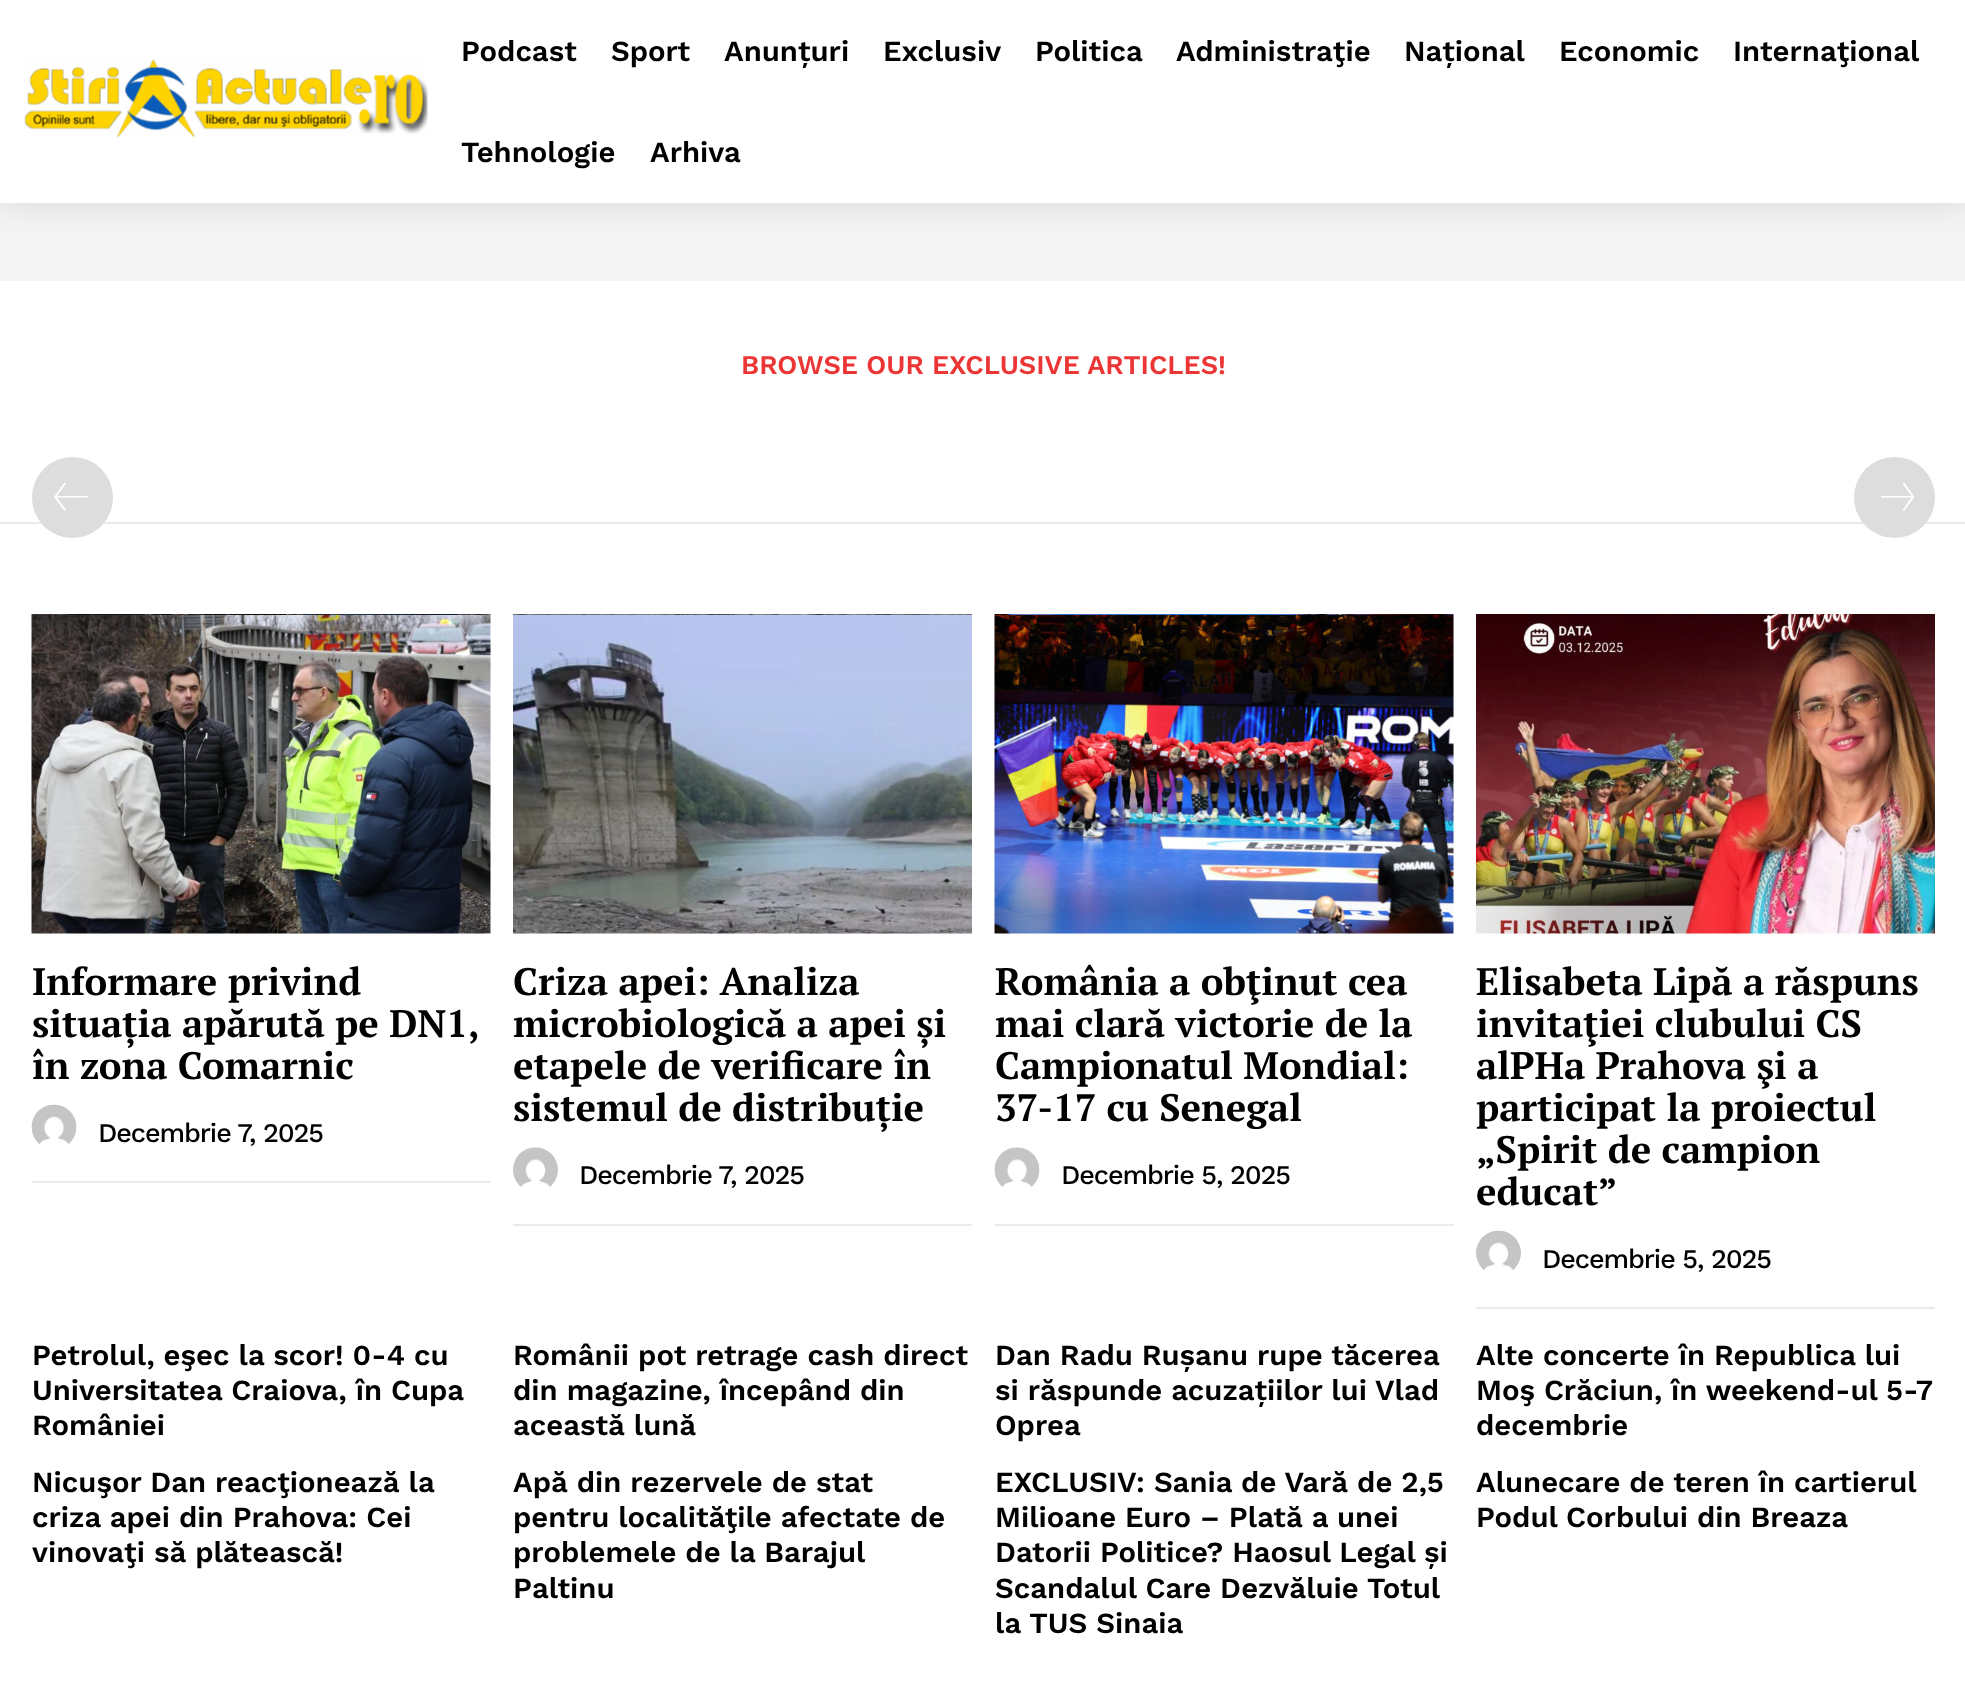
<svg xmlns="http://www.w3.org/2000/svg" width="1965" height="1684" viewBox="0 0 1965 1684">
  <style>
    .t1 { font: 600 29.25px Work Sans; fill: #000; }
    .t2 { font: 600 27px Work Sans; fill: #ec3535; }
    .t3 { font: bold 38.25px PT Serif; fill: #000; }
    .t4 { font: 500 27px Work Sans; letter-spacing: -1.1px; fill: #000; }
  </style>
  <defs>
    <clipPath id="clip1"><path d="M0 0H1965V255H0ZM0 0H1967V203H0Z" clip-rule="evenodd"/></clipPath>
  </defs>
  <rect width="100%" height="100%" fill="#fff"/>
  <image x="24" y="59" width="404" height="79" href="images/1.png"/>
  <rect x="0" y="203" width="1965" height="78" fill="#f4f4f4"/>
  <g clip-path="url(#clip1)">
    <rect x="0" y="0" width="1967" height="203" fill="#0000001f" filter="blur(17px)"/>
  </g>
  <text x="461" y="61" class="t1">Podcast</text>
  <text x="611" y="61" class="t1">Sport</text>
  <text x="724" y="61" class="t1">Anunțuri</text>
  <text x="883" y="61" class="t1">Exclusiv</text>
  <text x="1035" y="61" class="t1">Politica</text>
  <text x="1176" y="61" class="t1">Administraţie</text>
  <text x="1404" y="61" class="t1">Național</text>
  <text x="1559" y="61" class="t1">Economic</text>
  <text x="1733" y="61" class="t1">Internaţional</text>
  <text x="461" y="162" class="t1">Tehnologie</text>
  <text x="650" y="162" class="t1">Arhiva</text>
  <text x="741" y="374" class="t2">BROWSE OUR EXCLUSIVE ARTICLES!</text>
  <rect x="0" y="522" width="1965" height="2" fill="#eaeaea"/>
  <circle cx="72.5" cy="497.5" r="40.5" fill="#ddd"/>
  <path d="M66 510L57 497.5H87.5V496H57L66 483.5L64.5 482.5L54 497L64.5 511Z" fill="#fff"/>
  <circle cx="1894.5" cy="497.5" r="40.5" fill="#ddd"/>
  <path d="M1902.5 510L1904 511L1914.5 497L1904 482.5L1902.5 483.5L1911.5 496H1881V497.5H1911.5Z" fill="#fff"/>
  <rect x="32" y="1181" width="459" height="2" fill="#eaeaea"/>
  <image x="31" y="614" width="460" height="320" href="images/2.png"/>
  <text x="32" y="995" class="t3">Informare privind</text>
  <text x="32" y="1037" class="t3">situația apărută pe DN1,</text>
  <text x="32" y="1079" class="t3">în zona Comarnic</text>
  <image x="31" y="1104" width="46" height="41" href="images/3.png"/>
  <text x="98" y="1142" class="t4">Decembrie 7, 2025</text>
  <rect x="513" y="1224" width="459" height="2" fill="#eaeaea"/>
  <image x="513" y="614" width="459" height="320" href="images/4.png"/>
  <text x="513" y="995" class="t3">Criza apei: Analiza</text>
  <text x="513" y="1037" class="t3">microbiologică a apei și</text>
  <text x="513" y="1079" class="t3">etapele de verificare în</text>
  <text x="513" y="1121" class="t3">sistemul de distribuție</text>
  <image x="513" y="1147" width="45" height="40" href="images/5.png"/>
  <text x="579" y="1184" class="t4">Decembrie 7, 2025</text>
  <rect x="995" y="1224" width="459" height="2" fill="#eaeaea"/>
  <image x="994" y="614" width="460" height="320" href="images/6.png"/>
  <text x="995" y="995" class="t3">România a obţinut cea</text>
  <text x="995" y="1037" class="t3">mai clară victorie de la</text>
  <text x="995" y="1079" class="t3">Campionatul Mondial:</text>
  <text x="995" y="1121" class="t3">37-17 cu Senegal</text>
  <image x="994" y="1147" width="46" height="40" href="images/7.png"/>
  <text x="1061" y="1184" class="t4">Decembrie 5, 2025</text>
  <rect x="1476" y="1307" width="459" height="2" fill="#eaeaea"/>
  <image x="1476" y="614" width="459" height="320" href="images/8.png"/>
  <text x="1476" y="995" class="t3">Elisabeta Lipă a răspuns</text>
  <text x="1476" y="1037" class="t3">invitaţiei clubului CS</text>
  <text x="1476" y="1079" class="t3">alPHa Prahova şi a</text>
  <text x="1476" y="1121" class="t3">participat la proiectul</text>
  <text x="1476" y="1163" class="t3">„Spirit de campion</text>
  <text x="1476" y="1205" class="t3">educat”</text>
  <image x="1476" y="1230" width="45" height="41" href="images/9.png"/>
  <text x="1542" y="1268" class="t4">Decembrie 5, 2025</text>
  <text x="32" y="1365" class="t1">Petrolul, eşec la scor! 0-4 cu</text>
  <text x="32" y="1400" class="t1">Universitatea Craiova, în Cupa</text>
  <text x="32" y="1435" class="t1">României</text>
  <text x="513" y="1365" class="t1">Românii pot retrage cash direct</text>
  <text x="513" y="1400" class="t1">din magazine, începând din</text>
  <text x="513" y="1435" class="t1">această lună</text>
  <text x="995" y="1365" class="t1">Dan Radu Rușanu rupe tăcerea</text>
  <text x="995" y="1400" class="t1">si răspunde acuzațiilor lui Vlad</text>
  <text x="995" y="1435" class="t1">Oprea</text>
  <text x="1476" y="1365" class="t1">Alte concerte în Republica lui</text>
  <text x="1476" y="1400" class="t1">Moş Crăciun, în weekend-ul 5-7</text>
  <text x="1476" y="1435" class="t1">decembrie</text>
  <text x="32" y="1492" class="t1">Nicuşor Dan reacţionează la</text>
  <text x="32" y="1527" class="t1">criza apei din Prahova: Cei</text>
  <text x="32" y="1562" class="t1">vinovaţi să plătească!</text>
  <text x="513" y="1492" class="t1">Apă din rezervele de stat</text>
  <text x="513" y="1527" class="t1">pentru localităţile afectate de</text>
  <text x="513" y="1562" class="t1">problemele de la Barajul</text>
  <text x="513" y="1598" class="t1">Paltinu</text>
  <text x="995" y="1492" class="t1">EXCLUSIV: Sania de Vară de 2,5</text>
  <text x="995" y="1527" class="t1">Milioane Euro – Plată a unei</text>
  <text x="995" y="1562" class="t1">Datorii Politice? Haosul Legal și</text>
  <text x="995" y="1598" class="t1">Scandalul Care Dezvăluie Totul</text>
  <text x="995" y="1633" class="t1">la TUS Sinaia</text>
  <text x="1476" y="1492" class="t1">Alunecare de teren în cartierul</text>
  <text x="1476" y="1527" class="t1">Podul Corbului din Breaza</text>
</svg>
